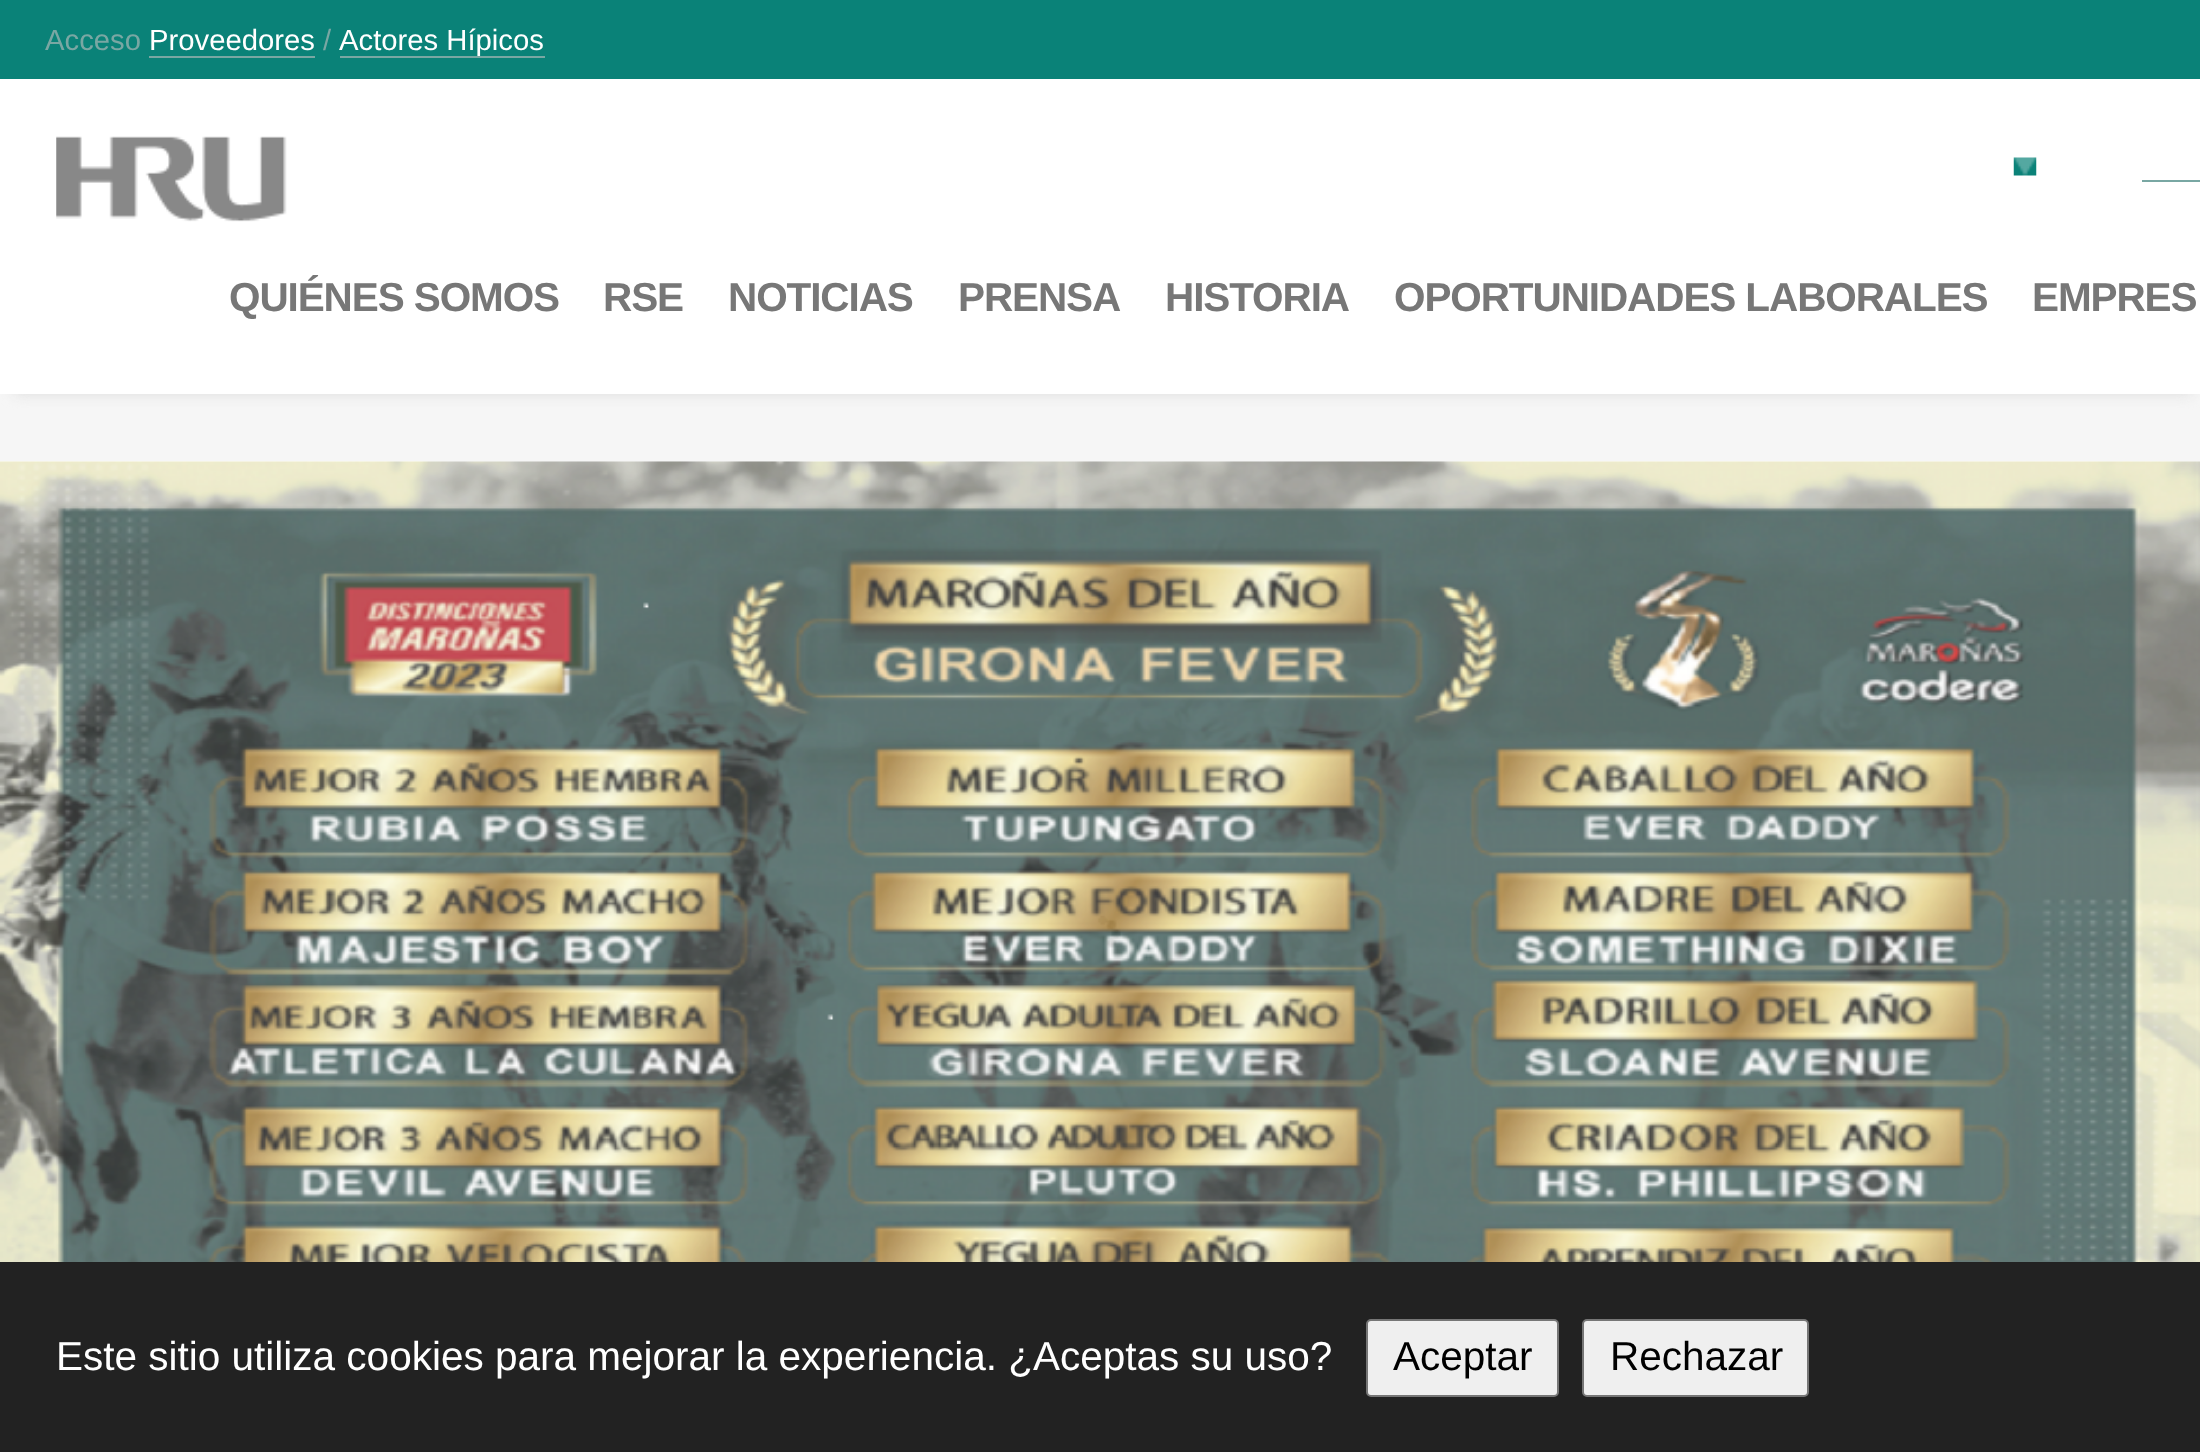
<svg xmlns="http://www.w3.org/2000/svg" width="2200" height="1452" viewBox="0 0 2200 1452">
  <style>
    .t1 { font: 29.25px Liberation Sans; fill: #79a7a3; }
    .t2 { font: 29.25px Liberation Sans; fill: #fff; }
    .t3 { font: bold 40.5px Liberation Sans; letter-spacing: -1.1px; fill: #777; }
    .t4 { font: 40.5px Liberation Sans; fill: #fff; }
    .t5 { font: 40.5px Liberation Sans; fill: #000; }
  </style>
  <rect width="100%" height="100%" fill="#f6f6f6"/>
  <rect x="14" y="27" width="2178" height="367" fill="#ddd" filter="blur(7px)"/>
  <rect x="0" y="79" width="2200" height="315" fill="#fff"/>
  <rect x="0" y="0" width="2200" height="79" fill="#0a8278"/>
  <text x="45" y="50" class="t1">Acceso</text>
  <rect x="149" y="56" width="166" height="2" fill="#79a7a3"/>
  <text x="149" y="50" class="t2">Proveedores</text>
  <text x="323" y="50" class="t1">/</text>
  <rect x="340" y="56" width="205" height="2" fill="#79a7a3"/>
  <text x="339" y="50" class="t2">Actores Hípicos</text>
  <image x="56" y="136" width="231" height="86" href="images/1.png"/>
  <image x="2013" y="157" width="24" height="19" href="images/2.png"/>
  <rect x="2142" y="180" width="58" height="2" fill="#79a7a3"/>
  <text x="229" y="311" class="t3">QUIÉNES SOMOS</text>
  <text x="603" y="311" class="t3">RSE</text>
  <text x="728" y="311" class="t3">NOTICIAS</text>
  <text x="958" y="311" class="t3">PRENSA</text>
  <text x="1165" y="311" class="t3">HISTORIA</text>
  <text x="1394" y="311" class="t3">OPORTUNIDADES LABORALES</text>
  <text x="2032" y="311" class="t3">EMPRES</text>
  <rect x="0" y="461" width="2200" height="801" fill="#fff"/>
  <image x="1097" y="915" width="24" height="33" href="images/3.png"/>
  <image x="0" y="461" width="2200" height="801" href="images/4.png"/>
  <rect x="0" y="1262" width="2200" height="190" fill="#222"/>
  <text x="56" y="1370" class="t4">Este sitio utiliza cookies para mejorar la experiencia. ¿Aceptas su uso?</text>
  <rect x="1367" y="1320" width="191" height="76" rx="4" fill="#efefef" stroke="#767676" stroke-width="2"/>
  <text x="1393" y="1370" class="t5">Aceptar</text>
  <rect x="1583" y="1320" width="225" height="76" rx="4" fill="#efefef" stroke="#767676" stroke-width="2"/>
  <text x="1610" y="1370" class="t5">Rechazar</text>
</svg>
